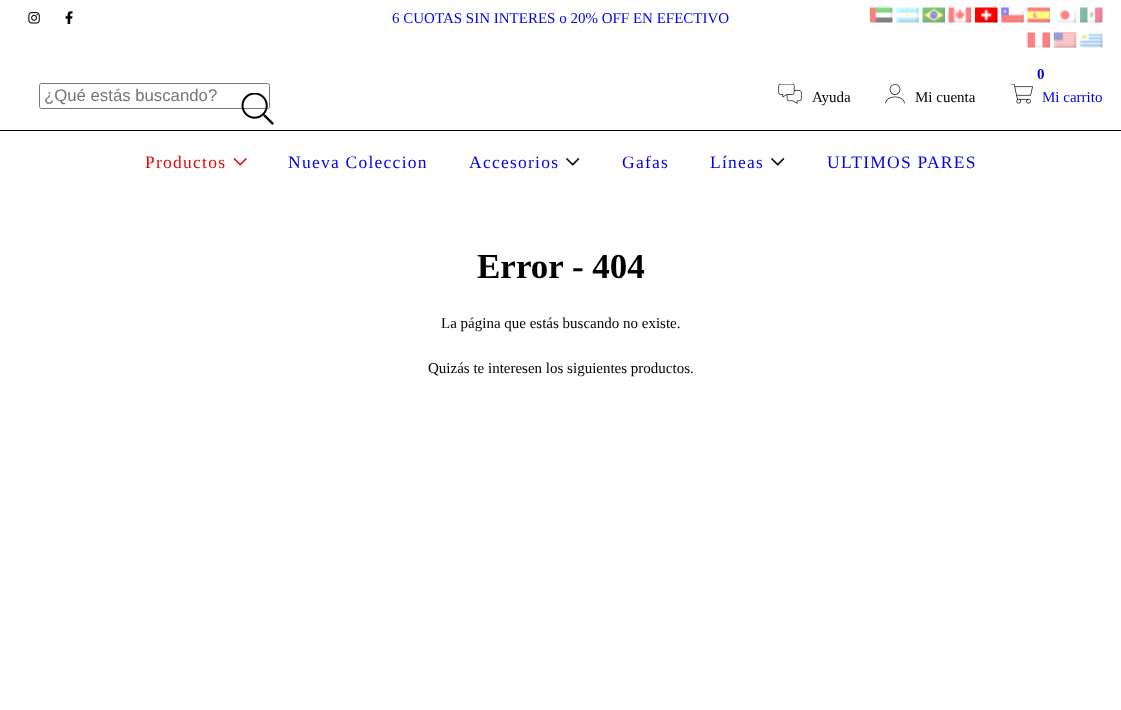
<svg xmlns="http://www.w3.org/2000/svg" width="1121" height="710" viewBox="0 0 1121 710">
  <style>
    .t1 { font: 15px Liberation Serif; fill: #00e; }
    .t2 { font: 16.75px Liberation Sans; fill: #757575; }
    .t3 { font: 15px Liberation Serif; fill: #000; }
    .t4 { font: bold 15px Liberation Serif; fill: #00e; }
    .t5 { font: 17.5px Liberation Serif; letter-spacing: 1.25px; fill: #e00a0a; }
    .t6 { font: 17.5px Liberation Serif; letter-spacing: 1.25px; fill: #00e; }
    .t7 { font: bold 35px Liberation Serif; fill: #000; }
  </style>
  <rect width="100%" height="100%" fill="#fff"/>
  <image x="28" y="12" width="12" height="12" href="images/1.png"/>
  <image x="65" y="11" width="8" height="13" href="images/2.png"/>
  <text x="392" y="23" class="t1">6 CUOTAS SIN INTERES o 20% OFF EN EFECTIVO</text>
  <image x="870" y="7" width="23" height="16" href="images/3.png"/>
  <image x="896" y="7" width="23" height="16" href="images/4.png"/>
  <image x="922" y="7" width="23" height="16" href="images/5.png"/>
  <image x="948" y="7" width="24" height="16" href="images/6.png"/>
  <image x="975" y="7" width="23" height="16" href="images/7.png"/>
  <image x="1001" y="7" width="23" height="16" href="images/8.png"/>
  <image x="1027" y="7" width="23" height="16" href="images/9.png"/>
  <image x="1056" y="9" width="21" height="14" href="images/10.png"/>
  <image x="1080" y="7" width="23" height="16" href="images/11.png"/>
  <image x="1027" y="32" width="23" height="16" href="images/12.png"/>
  <image x="1053" y="32" width="24" height="16" href="images/13.png"/>
  <image x="1080" y="33" width="23" height="15" href="images/14.png"/>
  <rect x="39.5" y="83.5" width="230" height="25" rx="2" fill="none" stroke="#767676"/>
  <text x="44" y="101" class="t2">¿Qué estás buscando?</text>
  <image x="241" y="93" width="33" height="32" href="images/15.png"/>
  <image x="778" y="84" width="24" height="20" href="images/16.png"/>
  <text x="812" y="102" class="t3">Ayuda</text>
  <image x="885" y="84" width="20" height="20" href="images/17.png"/>
  <text x="915" y="102" class="t3">Mi cuenta</text>
  <text x="1037" y="79" class="t4">0</text>
  <image x="1010" y="84" width="23" height="20" href="images/18.png"/>
  <text x="1042" y="102" class="t1">Mi carrito</text>
  <rect x="0" y="130" width="1121" height="1" fill="#000"/>
  <text x="145" y="168" class="t5">Productos</text>
  <image x="233" y="158" width="14" height="8" href="images/19.png"/>
  <text x="288" y="168" class="t6">Nueva Coleccion</text>
  <text x="469" y="168" class="t6">Accesorios</text>
  <image x="566" y="158" width="14" height="8" href="images/20.png"/>
  <text x="622" y="168" class="t6">Gafas</text>
  <text x="710" y="168" class="t6">Líneas</text>
  <image x="771" y="158" width="14" height="8" href="images/20.png"/>
  <text x="827" y="168" class="t6">ULTIMOS PARES</text>
  <text x="477" y="278" class="t7">Error - 404</text>
  <text x="441" y="328" class="t3">La página que estás buscando no existe.</text>
  <text x="428" y="373" class="t3">Quizás te interesen los siguientes productos.</text>
</svg>
